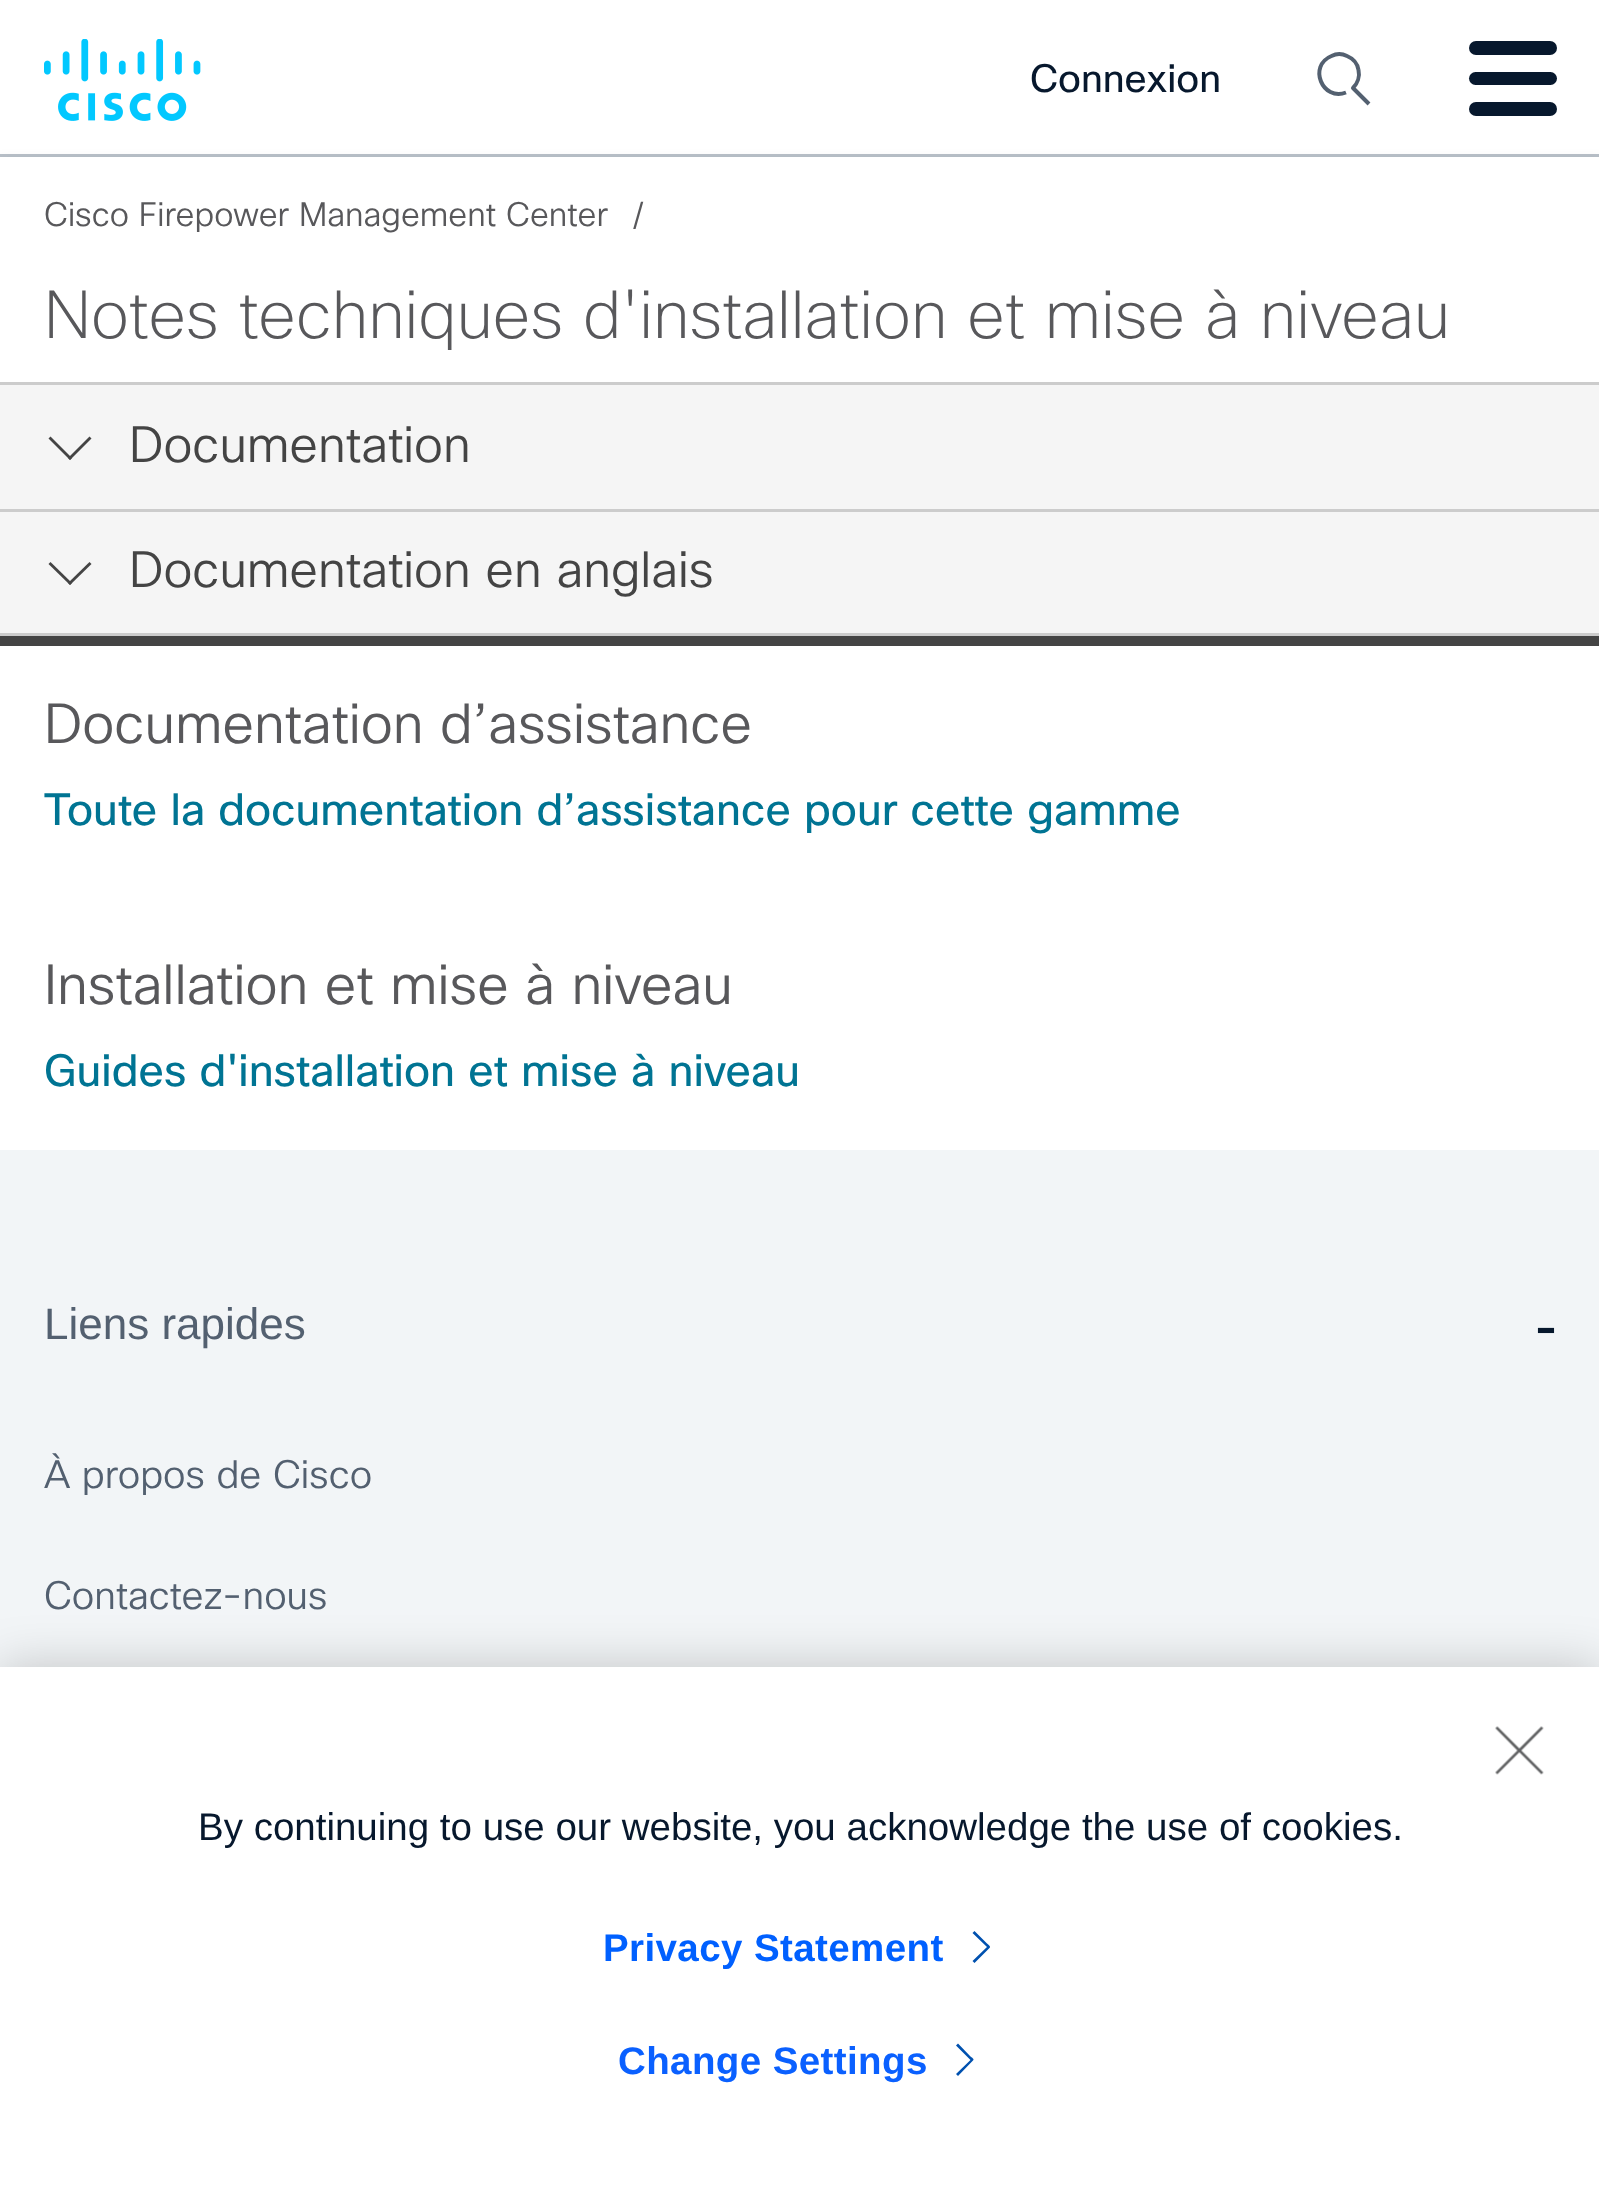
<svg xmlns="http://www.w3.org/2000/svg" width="1599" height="2188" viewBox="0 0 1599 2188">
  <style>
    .t1 { font: 38.5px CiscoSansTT; fill: #07182d; }
    .t2 { font: 300 33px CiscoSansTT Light; fill: #58585b; }
    .t3 { font: 200 66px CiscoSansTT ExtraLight; fill: #58585b; }
    .t4 { font: 300 49.5px CiscoSansTT Light; fill: #444; }
    .t5 { font: 300 55px CiscoSansTT Light; fill: #58585b; }
    .t6 { font: 44px CiscoSansTT; fill: #007493; }
    .t7 { font: 44px Liberation Sans; fill: #536070; }
    .t8 { font: 66px Liberation Sans; fill: #07182d; }
    .t9 { font: 300 38.5px CiscoSansTT Light; fill: #536070; }
    .t10 { font: 38.5px Liberation Sans; fill: #07182d; }
    .t11 { font: bold 38.5px Liberation Sans; letter-spacing: 0.4px; fill: #0060ff; }
    .t12 { font: bold 38.5px Liberation Sans; letter-spacing: 0.4px; fill: #0a60ff; }
  </style>
  <rect width="100%" height="100%" fill="#fff"/>
  <rect x="0" y="154" width="1599" height="3" fill="#b9c1c9"/>
  <image x="44" y="39" width="157" height="82" href="images/1.png"/>
  <text x="1030" y="92" class="t1">Connexion</text>
  <path d="M1346 92.5C1322.5 101.5 1307.5 66 1331.5 56C1336.5 53.5 1342 53.5 1347 56C1353 58.5 1357.5 63.5 1358.5 70C1360 76.5 1357.5 83.5 1353 88L1369 104" fill="none" stroke="#536070" stroke-width="4" stroke-linejoin="round"/>
  <rect x="1469" y="41" width="88" height="14" rx="7" fill="#07182d"/>
  <rect x="1469" y="72" width="88" height="13" rx="6.5" fill="#07182d"/>
  <rect x="1469" y="102" width="88" height="14" rx="7" fill="#07182d"/>
  <rect x="0" y="162" width="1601" height="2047" fill="#0000001f" filter="blur(7px)"/>
  <rect x="0" y="157" width="1599" height="993" fill="#fff"/>
  <text x="44" y="226" class="t2">Cisco Firepower Management Center</text>
  <text x="632" y="226" class="t2">/</text>
  <text x="44" y="338" class="t3">Notes techniques d'installation et mise à niveau</text>
  <rect x="0" y="636" width="1599" height="10" fill="#444"/>
  <rect x="0" y="385" width="1599" height="124" fill="#f5f5f5"/>
  <rect x="0" y="382" width="1599" height="3" fill="#ccc"/>
  <rect x="0" y="509" width="1599" height="3" fill="#ccc"/>
  <path d="M89.5 436.5L91.5 438.5L70 460L68 458Z" fill="#444"/>
  <path d="M50.5 436.5L72 458L70 460L48.5 438.5Z" fill="#444"/>
  <text x="129" y="462" class="t4">Documentation</text>
  <rect x="0" y="512" width="1599" height="121" fill="#f5f5f5"/>
  <rect x="0" y="633" width="1599" height="3" fill="#ccc"/>
  <path d="M89.5 562L91.5 564L70 585L68 583Z" fill="#444"/>
  <path d="M50.5 562L72 583L70 585L48.5 564Z" fill="#444"/>
  <text x="129" y="587" class="t4">Documentation en anglais</text>
  <text x="44" y="743" class="t5">Documentation d’assistance</text>
  <text x="44" y="825" class="t6">Toute la documentation d’assistance pour cette gamme</text>
  <text x="44" y="1004" class="t5">Installation et mise à niveau</text>
  <text x="44" y="1086" class="t6">Guides d'installation et mise à niveau</text>
  <rect x="0" y="1150" width="1599" height="517" fill="#f2f5f7"/>
  <text x="44" y="1339" class="t7">Liens rapides</text>
  <text x="1535" y="1348" class="t8">-</text>
  <text x="44" y="1488" class="t9">À propos de Cisco</text>
  <text x="44" y="1609" class="t9">Contactez-nous</text>
  <rect x="0" y="1667" width="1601" height="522" fill="#00000033" filter="blur(25px)"/>
  <rect x="0" y="1667" width="1599" height="521" fill="#fff"/>
  <image x="1495" y="1726" width="49" height="49" href="images/2.png"/>
  <text x="198" y="1840" class="t10">By continuing to use our website, you acknowledge the use of cookies.</text>
  <text x="603" y="1961" class="t11">Privacy Statement</text>
  <path d="M974.5 1963L972.5 1961L987 1947L972.5 1933L974.5 1931L987 1943.5C987.5 1944 991.5 1946.5 989.5 1948Z" fill="#0051af"/>
  <text x="618" y="2074" class="t12">Change Settings</text>
  <path d="M958 2076L956 2074L970.5 2060L956 2045.5L958 2043.5L970.5 2056.5C971 2057 975 2059 973 2060.5Z" fill="#0051af"/>
</svg>
